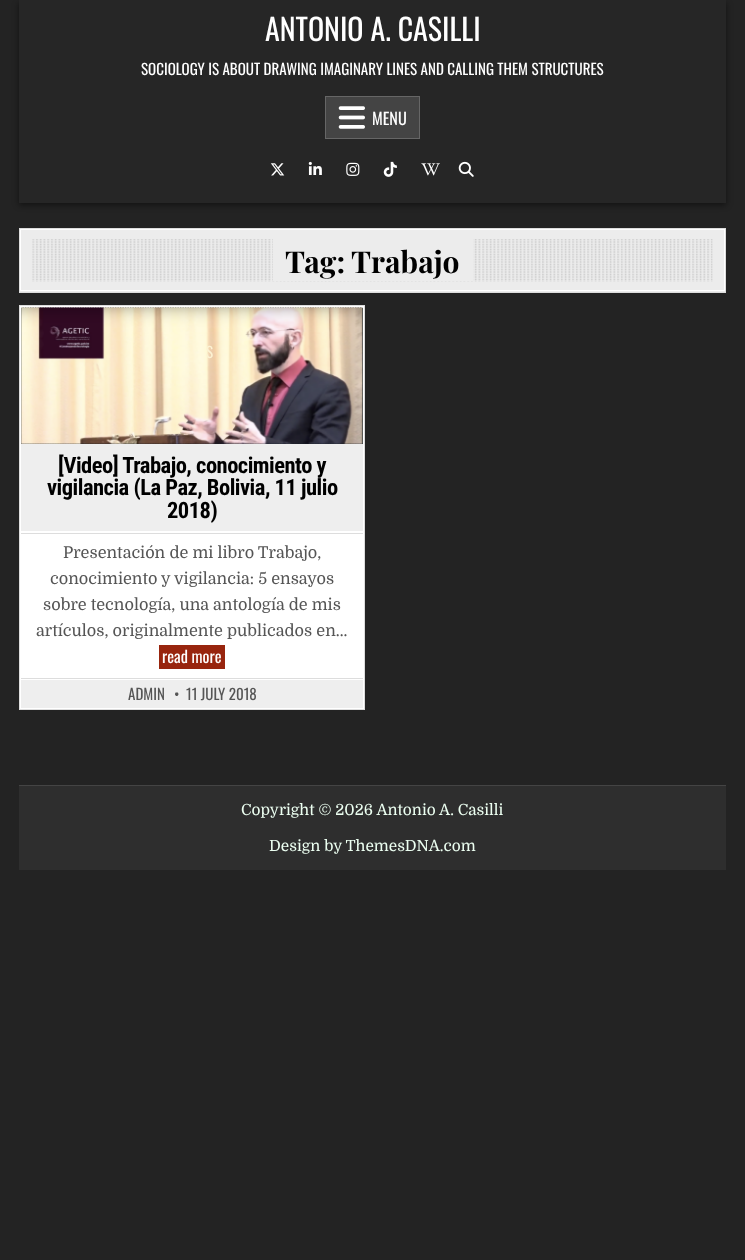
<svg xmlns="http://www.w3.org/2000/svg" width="745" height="1260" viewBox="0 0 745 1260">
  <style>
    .t1 { font: 30px Oswald; fill: #fff; }
    .t2 { font: 15px Oswald; fill: #fff; }
    .t3 { font: 16.25px Oswald; fill: #fff; }
    .t4 { font: bold 30px Playfair Display; fill: #000; }
    .t5 { font: 15px Oswald; letter-spacing: 1px; fill: #fcf2d3; }
    .t6 { font: bold 22.5px Roboto Condensed; letter-spacing: -0.5px; fill: #000; }
    .t7 { font: 16.25px Domine; fill: #555; }
    .t8 { font: 15px Oswald; fill: #555; }
    .t9 { font: 15.4px Domine; fill: #ecfff1; }
  </style>
  <defs>
    <clipPath id="clip1"><rect x="20" y="229" width="705" height="62"/></clipPath>
  </defs>
  <rect width="100%" height="100%" fill="#232323"/>
  <rect x="19" y="3" width="707" height="202" fill="#00000080" filter="blur(3px)"/>
  <rect x="19" y="0" width="707" height="203" fill="#262626"/>
  <text x="265" y="41" class="t1">ANTONIO A. CASILLI</text>
  <text x="141" y="75" class="t2">SOCIOLOGY IS ABOUT DRAWING IMAGINARY LINES AND CALLING THEM STRUCTURES</text>
  <rect x="325.5" y="96.5" width="94" height="42" fill="#444" stroke="#666"/>
  <image x="338" y="106" width="27" height="23" href="images/1.png"/>
  <text x="372" y="125" class="t3">MENU</text>
  <image x="270" y="163" width="15" height="13" href="images/2.png"/>
  <image x="308" y="161" width="14" height="14" href="images/3.png"/>
  <image x="346" y="162" width="14" height="14" href="images/4.png"/>
  <image x="383" y="161" width="14" height="16" href="images/5.png"/>
  <image x="421" y="163" width="19" height="13" href="images/6.png"/>
  <image x="458" y="161" width="16" height="16" href="images/7.png"/>
  <rect x="20" y="230" width="705" height="62" fill="#ececec"/>
  <g clip-path="url(#clip1)">
    <path d="M-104 105H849V415H-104ZM19 228H724V290H19Z" fill="#fff" fill-rule="evenodd"/>
    <path d="M-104 105H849V415H-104ZM21 230H726V292H21Z" fill="#fff" fill-rule="evenodd"/>
  </g>
  <rect x="19.5" y="228.5" width="706" height="64" fill="none" stroke="#ddd"/>
  <image x="32" y="239" width="681" height="43" href="images/8.png"/>
  <rect x="273" y="239" width="200" height="42" fill="#ececec"/>
  <text x="285" y="273" class="t4">Tag:</text>
  <text x="351" y="273" class="t4">Trabajo</text>
  <rect x="19.5" y="305.5" width="345" height="404" fill="#fff" stroke="#ddd"/>
  <rect x="21" y="308" width="342" height="136" fill="#1e2b34"/>
  <image x="21" y="307" width="342" height="137" href="images/9.png"/>
  <image x="21" y="307" width="342" height="137" href="images/10.png"/>
  <text x="206" y="358" class="t5">S</text>
  <rect x="21" y="444" width="342" height="87" fill="#eee"/>
  <text x="58" y="473" class="t6">[Video] Trabajo, conocimiento y</text>
  <text x="47" y="495" class="t6">vigilancia (La Paz, Bolivia, 11 julio</text>
  <text x="167" y="518" class="t6">2018)</text>
  <rect x="21" y="533" width="342" height="1" fill="#ddd"/>
  <text x="63" y="558" class="t7">Presentación de mi libro Trabajo,</text>
  <text x="50" y="584" class="t7">conocimiento y vigilancia: 5 ensayos</text>
  <text x="43" y="610" class="t7">sobre tecnología, una antología de mis</text>
  <text x="36" y="636" class="t7">artículos, originalmente publicados en…</text>
  <rect x="159" y="645" width="66" height="24" fill="#98250e"/>
  <text x="162" y="663" class="t3">read more</text>
  <rect x="21" y="680" width="342" height="28" fill="#eee"/>
  <rect x="21" y="678" width="342" height="1" fill="#ddd"/>
  <text x="128" y="700" class="t8">ADMIN</text>
  <text x="174" y="700" class="t8">•</text>
  <text x="186" y="700" class="t8">11 JULY 2018</text>
  <rect x="19" y="786" width="707" height="84" fill="#2e2e2e"/>
  <rect x="19" y="785" width="707" height="1" fill="#444"/>
  <text x="241" y="815" class="t9">Copyright © 2026 Antonio A. Casilli</text>
  <text x="269" y="851" class="t9">Design by ThemesDNA.com</text>
</svg>
